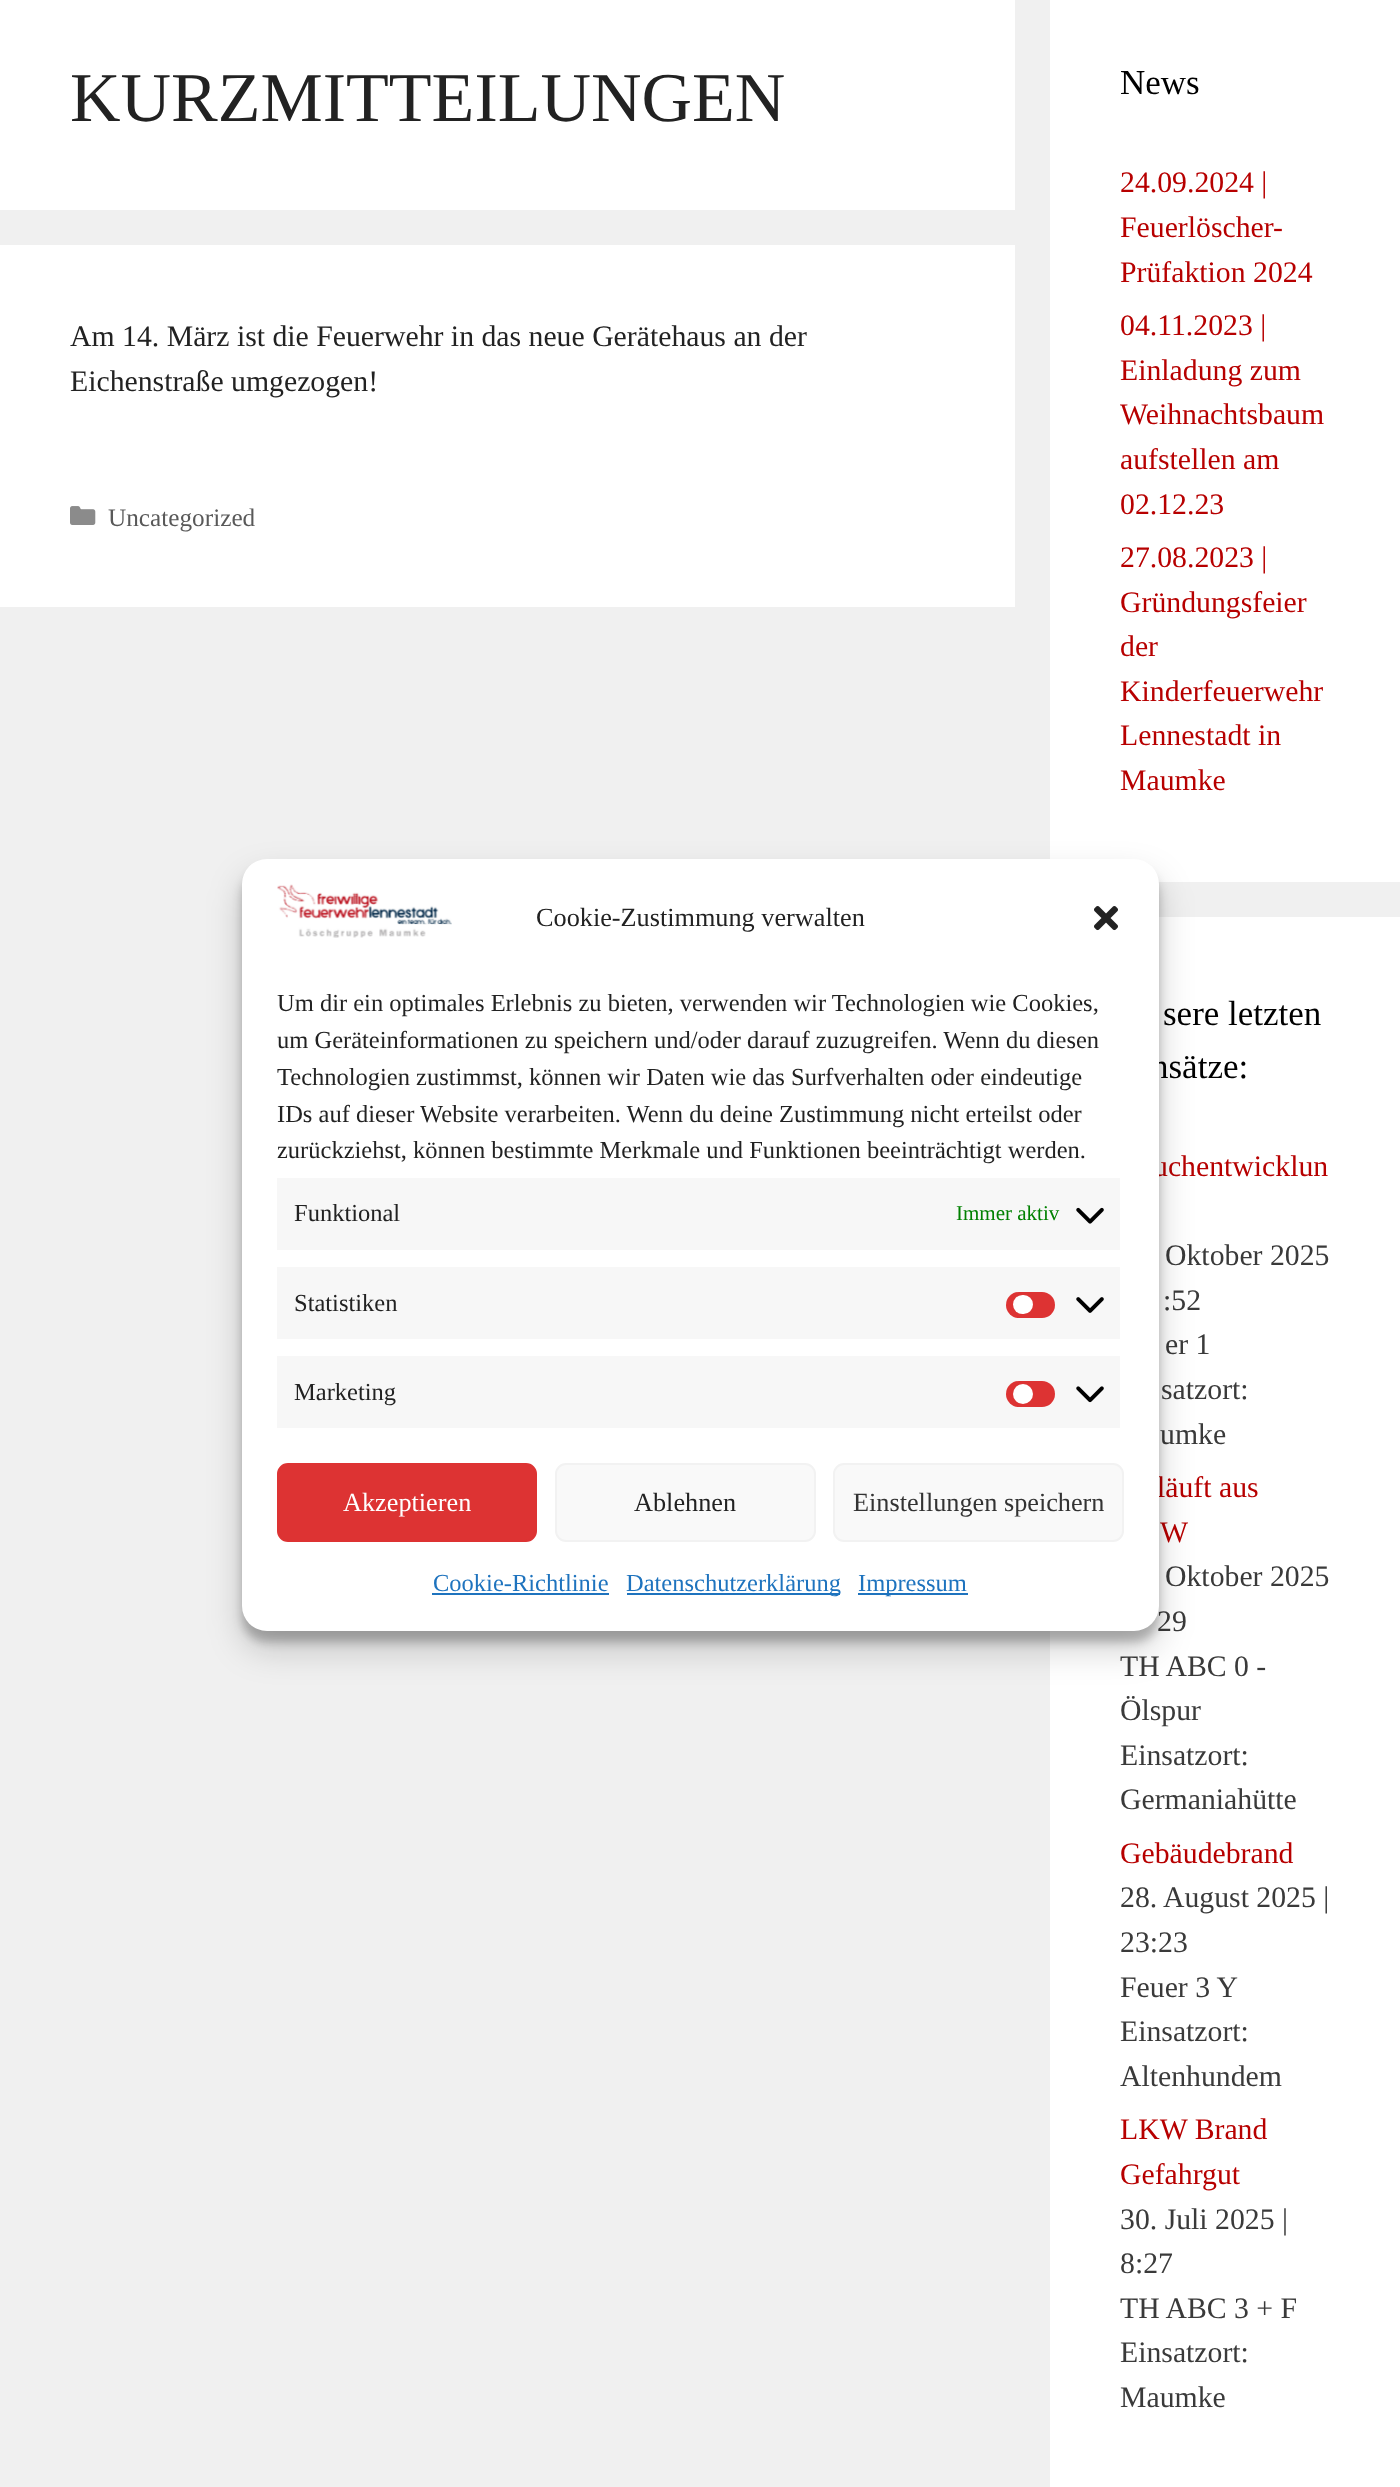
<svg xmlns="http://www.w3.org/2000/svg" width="1400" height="2487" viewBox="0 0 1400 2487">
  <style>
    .t1 { font: 70px Liberation Serif; fill: #222; }
    .t2 { font: 29.75px Liberation Serif; fill: #222; }
    .t3 { font: 25.25px Liberation Serif; fill: #595959; }
    .t4 { font: 35px Liberation Serif; fill: #000; }
    .t5 { font: 29.75px Liberation Serif; fill: #b70000; }
    .t6 { font: 29.75px Liberation Serif; fill: #3a3a3a; }
    .t7 { font: 26.25px Liberation Serif; fill: #222; }
    .t8 { font: 24.5px Liberation Serif; fill: #222; }
    .t9 { font: 21px Liberation Serif; fill: #008000; }
    .t10 { font: 26.25px Liberation Serif; fill: #fff; }
    .t11 { font: 26.25px Liberation Serif; fill: #333; }
    .t12 { font: 24.5px Liberation Serif; fill: #1e73be; }
  </style>
  <rect width="100%" height="100%" fill="#f0f0f0"/>
  <rect x="0" y="0" width="1015" height="210" fill="#fff"/>
  <text x="70" y="121" class="t1">KURZMITTEILUNGEN</text>
  <rect x="0" y="245" width="1015" height="362" fill="#fff"/>
  <text x="70" y="346" class="t2">Am 14. März ist die Feuerwehr in das neue Gerätehaus an der</text>
  <text x="70" y="391" class="t2">Eichenstraße umgezogen!</text>
  <image x="70" y="506" width="26" height="19" href="images/1.png"/>
  <text x="108" y="526" class="t3">Uncategorized</text>
  <rect x="1050" y="0" width="350" height="882" fill="#fff"/>
  <text x="1120" y="94" class="t4">News</text>
  <text x="1120" y="192" class="t5">24.09.2024 |</text>
  <text x="1120" y="237" class="t5">Feuerlöscher-</text>
  <text x="1120" y="282" class="t5">Prüfaktion 2024</text>
  <text x="1120" y="335" class="t5">04.11.2023 |</text>
  <text x="1120" y="380" class="t5">Einladung zum</text>
  <text x="1120" y="424" class="t5">Weihnachtsbaum</text>
  <text x="1120" y="469" class="t5">aufstellen am</text>
  <text x="1120" y="514" class="t5">02.12.23</text>
  <text x="1120" y="567" class="t5">27.08.2023 |</text>
  <text x="1120" y="612" class="t5">Gründungsfeier</text>
  <text x="1120" y="656" class="t5">der</text>
  <text x="1120" y="701" class="t5">Kinderfeuerwehr</text>
  <text x="1120" y="745" class="t5">Lennestadt in</text>
  <text x="1120" y="790" class="t5">Maumke</text>
  <rect x="1050" y="917" width="350" height="1570" fill="#fff"/>
  <text x="1163" y="1025" class="t4">sere letzten</text>
  <text x="1151" y="1078" class="t4">nsätze:</text>
  <text x="1153" y="1176" class="t5">uchentwicklun</text>
  <text x="1165" y="1265" class="t6">Oktober 2025</text>
  <text x="1163" y="1310" class="t6">:52</text>
  <text x="1165" y="1354" class="t6">er 1</text>
  <text x="1161" y="1399" class="t6">satzort:</text>
  <text x="1160" y="1444" class="t6">umke</text>
  <text x="1157" y="1497" class="t5">läuft aus</text>
  <text x="1160" y="1542" class="t5">W</text>
  <text x="1165" y="1586" class="t6">Oktober 2025</text>
  <text x="1157" y="1631" class="t6">29</text>
  <text x="1120" y="1676" class="t6">TH ABC 0 -</text>
  <text x="1120" y="1720" class="t6">Ölspur</text>
  <text x="1120" y="1765" class="t6">Einsatzort:</text>
  <text x="1120" y="1809" class="t6">Germaniahütte</text>
  <text x="1120" y="1863" class="t5">Gebäudebrand</text>
  <text x="1120" y="1907" class="t6">28. August 2025 |</text>
  <text x="1120" y="1952" class="t6">23:23</text>
  <text x="1120" y="1997" class="t6">Feuer 3 Y</text>
  <text x="1120" y="2041" class="t6">Einsatzort:</text>
  <text x="1120" y="2086" class="t6">Altenhundem</text>
  <text x="1120" y="2139" class="t5">LKW Brand</text>
  <text x="1120" y="2184" class="t5">Gefahrgut</text>
  <text x="1120" y="2229" class="t6">30. Juli 2025 |</text>
  <text x="1120" y="2273" class="t6">8:27</text>
  <text x="1120" y="2318" class="t6">TH ABC 3 + F</text>
  <text x="1120" y="2362" class="t6">Einsatzort:</text>
  <text x="1120" y="2407" class="t6">Maumke</text>
  <rect x="242" y="870" width="917" height="772" rx="25" fill="#0000003b" filter="blur(5px)"/>
  <rect x="242" y="877" width="917" height="772" rx="25" fill="#00000030" filter="blur(17.5px)"/>
  <rect x="242" y="859" width="917" height="772" rx="25" fill="#fff"/>
  <image x="277" y="884" width="175" height="54" href="images/2.png"/>
  <text x="536" y="926" class="t7">Cookie-Zustimmung verwalten</text>
  <image x="1094" y="906" width="24" height="25" href="images/3.png"/>
  <text x="277" y="1011" class="t8">Um dir ein optimales Erlebnis zu bieten, verwenden wir Technologien wie Cookies,</text>
  <text x="277" y="1048" class="t8">um Geräteinformationen zu speichern und/oder darauf zuzugreifen. Wenn du diesen</text>
  <text x="277" y="1085" class="t8">Technologien zustimmst, können wir Daten wie das Surfverhalten oder eindeutige</text>
  <text x="277" y="1122" class="t8">IDs auf dieser Website verarbeiten. Wenn du deine Zustimmung nicht erteilst oder</text>
  <text x="277" y="1158" class="t8">zurückziehst, können bestimmte Merkmale und Funktionen beeinträchtigt werden.</text>
  <rect x="277" y="1178" width="843" height="72" fill="#f7f7f7"/>
  <text x="294" y="1221" class="t8">Funktional</text>
  <text x="956" y="1220" class="t9">Immer aktiv</text>
  <image x="1076" y="1207" width="28" height="17" href="images/4.png"/>
  <rect x="277" y="1267" width="843" height="72" fill="#f7f7f7"/>
  <text x="294" y="1311" class="t8">Statistiken</text>
  <rect x="1006" y="1292" width="49" height="26" rx="13" fill="#d33"/>
  <rect x="1013" y="1295" width="20" height="19" rx="9.5" fill="#fff"/>
  <image x="1076" y="1297" width="28" height="16" href="images/5.png"/>
  <rect x="277" y="1356" width="843" height="72" fill="#f7f7f7"/>
  <text x="294" y="1400" class="t8">Marketing</text>
  <rect x="1006" y="1381" width="49" height="26" rx="13" fill="#d33"/>
  <circle cx="1023" cy="1394" r="10" fill="#fff"/>
  <image x="1076" y="1386" width="28" height="17" href="images/6.png"/>
  <rect x="278" y="1464" width="258" height="77" rx="10" fill="#d33" stroke="#d33" stroke-width="2"/>
  <text x="343" y="1511" class="t10">Akzeptieren</text>
  <rect x="556" y="1464" width="259" height="77" rx="10" fill="#f9f9f9" stroke="#f2f2f2" stroke-width="2"/>
  <text x="634" y="1511" class="t7">Ablehnen</text>
  <rect x="834" y="1464" width="289" height="77" rx="10" fill="#f9f9f9" stroke="#f2f2f2" stroke-width="2"/>
  <text x="853" y="1511" class="t11">Einstellungen speichern</text>
  <text x="433" y="1591" class="t12">Cookie-Richtlinie</text>
  <rect x="432" y="1593" width="177" height="2" fill="#1e73be"/>
  <rect x="627" y="1593" width="213" height="2" fill="#1e73be"/>
  <text x="626" y="1591" class="t12">Datenschutzerklärung</text>
  <rect x="858" y="1593" width="110" height="2" fill="#1e73be"/>
  <text x="858" y="1591" class="t12">Impressum</text>
</svg>
